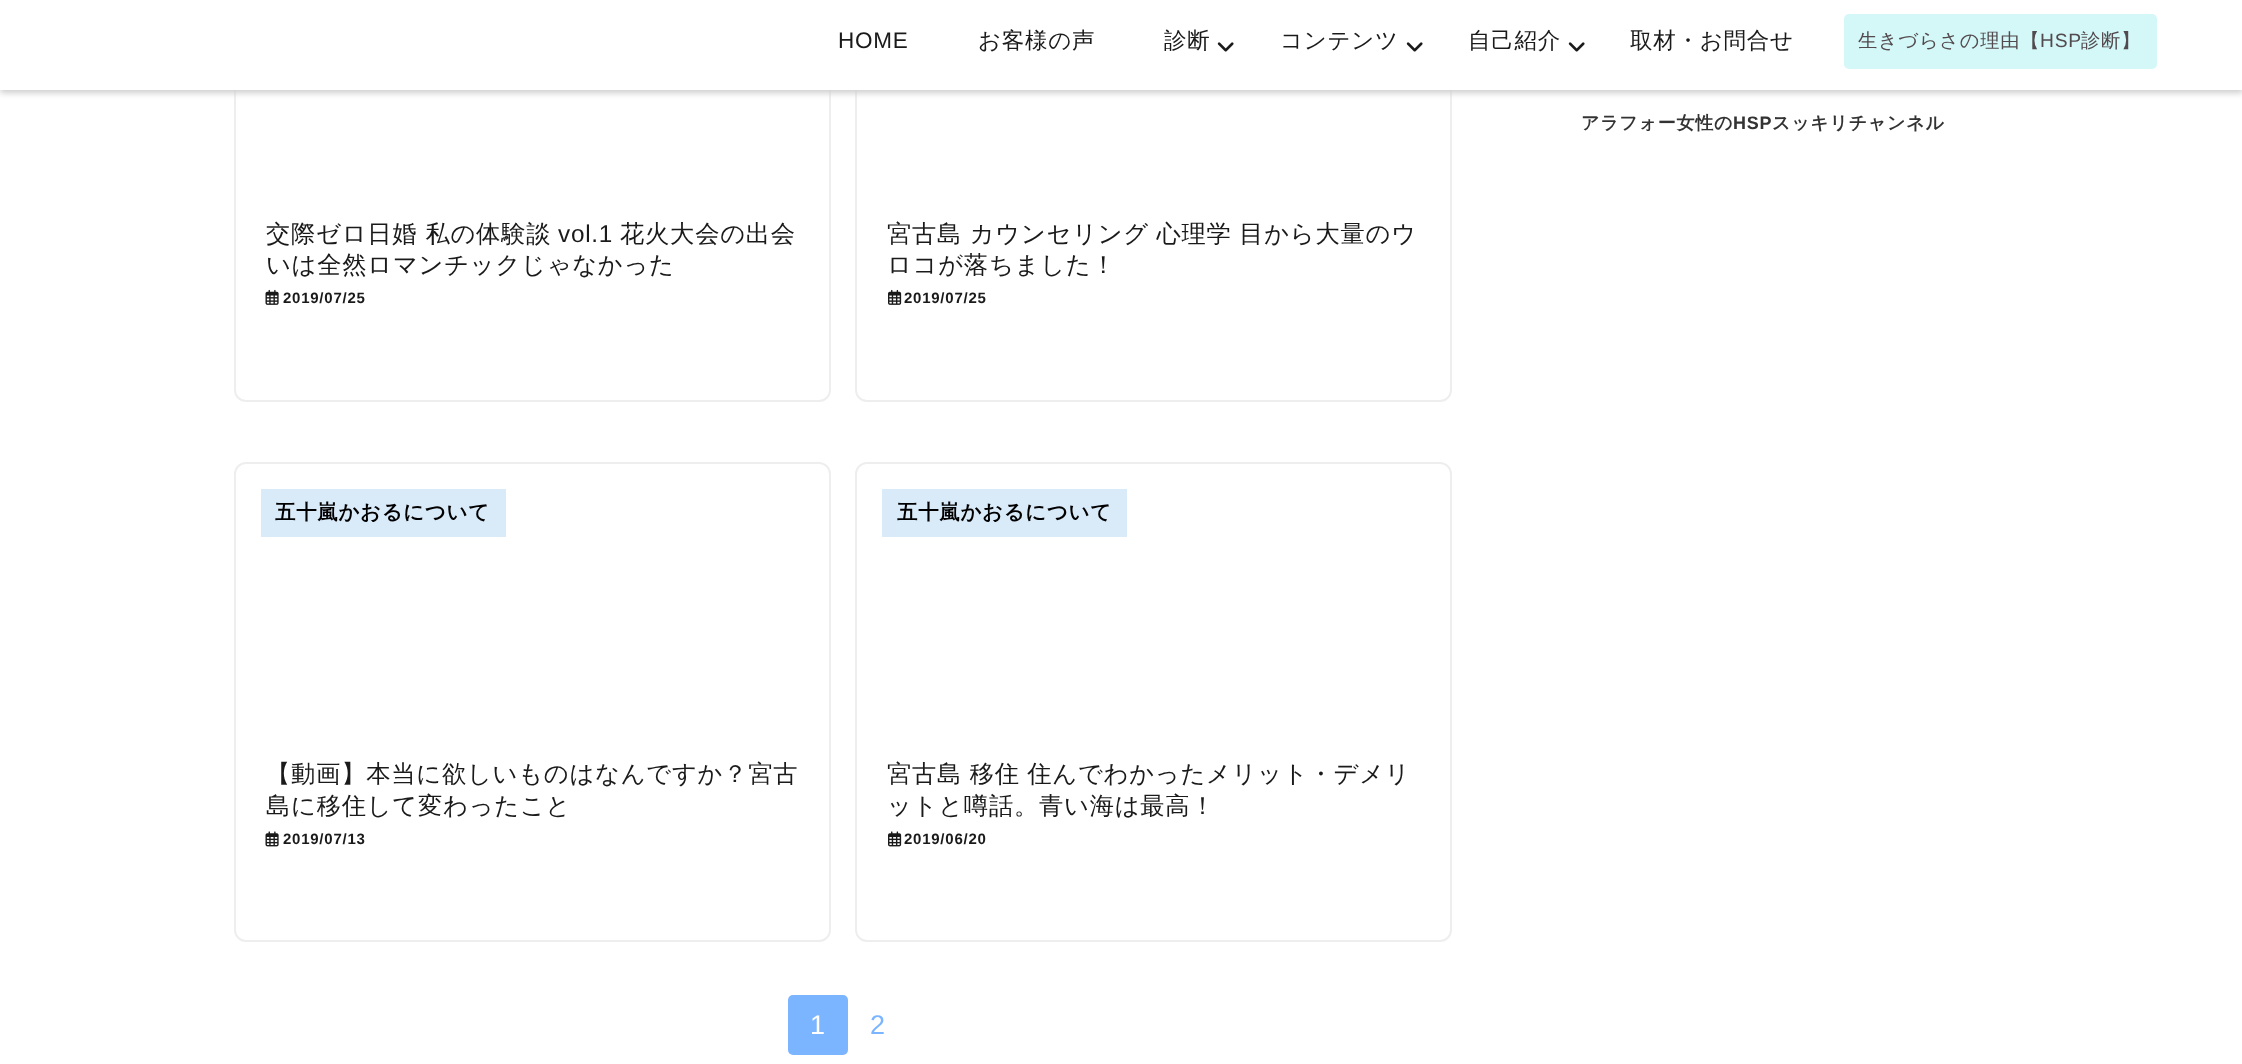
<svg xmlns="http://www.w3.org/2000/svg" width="2242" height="1064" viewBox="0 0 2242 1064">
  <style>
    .t1 { font: 22.5px Liberation Sans; letter-spacing: 0.75px; fill: #1a1a1a; }
    .t2 { font: 500 22.5px WenQuanYi Zen Hei; letter-spacing: 0.75px; fill: #1a1a1a; }
    .t3 { font: 500 19.25px WenQuanYi Zen Hei; letter-spacing: 0.75px; fill: #524a4e; }
    .t4 { font: 19.25px Liberation Sans; letter-spacing: 0.75px; fill: #524a4e; }
    .t5 { font: bold 18px WenQuanYi Zen Hei; letter-spacing: 0.75px; fill: #333; }
    .t6 { font: bold 18px Liberation Sans; letter-spacing: 0.75px; fill: #333; }
    .t7 { font: 500 24.3px WenQuanYi Zen Hei; letter-spacing: 0.75px; fill: #1a1a1a; }
    .t8 { font: 24.3px Liberation Sans; letter-spacing: 0.75px; fill: #1a1a1a; }
    .t9 { font: bold 15px Liberation Sans; letter-spacing: 0.75px; fill: #1a1a1a; }
    .t10 { font: bold 20.4px WenQuanYi Zen Hei; letter-spacing: 0.75px; fill: #000; }
    .t11 { font: 27px Liberation Sans; letter-spacing: 0.75px; fill: #fff; }
    .t12 { font: 27px Liberation Sans; letter-spacing: 0.75px; fill: #7cb5ff; }
  </style>
  <rect width="100%" height="100%" fill="#fff"/>
  <rect x="235" y="-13" width="595" height="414" rx="11" fill="none" stroke="#eee" stroke-width="2"/>
  <rect x="856" y="-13" width="595" height="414" rx="11" fill="none" stroke="#eee" stroke-width="2"/>
  <rect x="0" y="3" width="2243" height="90" fill="#ccc" filter="blur(3px)"/>
  <rect x="0" y="0" width="2242" height="90" fill="#fff"/>
  <text x="838" y="48" class="t1">HOME</text>
  <text x="978" y="48" class="t2">お客様の声</text>
  <text x="1164" y="48" class="t2">診断</text>
  <image x="1217" y="42" width="17" height="10" href="images/1.png"/>
  <text x="1280" y="48" class="t2">コンテンツ</text>
  <image x="1406" y="42" width="17" height="10" href="images/1.png"/>
  <text x="1468" y="48" class="t2">自己紹介</text>
  <image x="1568" y="42" width="17" height="10" href="images/1.png"/>
  <text x="1630" y="48" class="t2">取材・お問合せ</text>
  <rect x="1844" y="14" width="313" height="55" rx="5" fill="#d4f7f7"/>
  <text x="1858" y="47" class="t3">生きづらさの理由【</text>
  <text x="2040" y="47" class="t4">HSP</text>
  <text x="2081" y="47" class="t3">診断】</text>
  <text x="1581" y="129" class="t5">アラフォー女性の</text>
  <text x="1733" y="129" class="t6">HSP</text>
  <text x="1772" y="129" class="t5">スッキリチャンネル</text>
  <text x="266" y="242" class="t7">交際ゼロ日婚 私の体験談</text>
  <text x="558" y="242" class="t8">vol.1</text>
  <text x="620" y="242" class="t7">花火大会の出会</text>
  <text x="266" y="273" class="t7">いは全然ロマンチックじゃなかった</text>
  <image x="265" y="289" width="14" height="16" href="images/2.png"/>
  <text x="283" y="303" class="t9">2019/07/25</text>
  <text x="887" y="242" word-spacing="-0.5" class="t7">宮古島 カウンセリング 心理学 目から大量のウ</text>
  <text x="887" y="273" class="t7">ロコが落ちました！</text>
  <image x="888" y="289" width="14" height="16" href="images/3.png"/>
  <text x="904" y="303" class="t9">2019/07/25</text>
  <rect x="235" y="463" width="595" height="478" rx="11" fill="none" stroke="#eee" stroke-width="2"/>
  <rect x="261" y="489" width="245" height="48" fill="#d9eaf9"/>
  <text x="275" y="519" class="t10">五十嵐かおるについて</text>
  <text x="266" y="782" class="t7">【動画】本当に欲しいものはなんですか？宮古</text>
  <text x="266" y="814" class="t7">島に移住して変わったこと</text>
  <image x="265" y="831" width="14" height="16" href="images/4.png"/>
  <text x="283" y="844" class="t9">2019/07/13</text>
  <rect x="856" y="463" width="595" height="478" rx="11" fill="none" stroke="#eee" stroke-width="2"/>
  <rect x="882" y="489" width="245" height="48" fill="#d9eaf9"/>
  <text x="897" y="519" class="t10">五十嵐かおるについて</text>
  <text x="887" y="782" word-spacing="-0.5" class="t7">宮古島 移住 住んでわかったメリット・デメリ</text>
  <text x="887" y="814" class="t7">ットと噂話。青い海は最高！</text>
  <image x="888" y="831" width="14" height="16" href="images/5.png"/>
  <text x="904" y="844" class="t9">2019/06/20</text>
  <rect x="788" y="995" width="60" height="60" rx="5" fill="#7cb5ff"/>
  <text x="810" y="1034" class="t11">1</text>
  <text x="870" y="1034" class="t12">2</text>
</svg>
